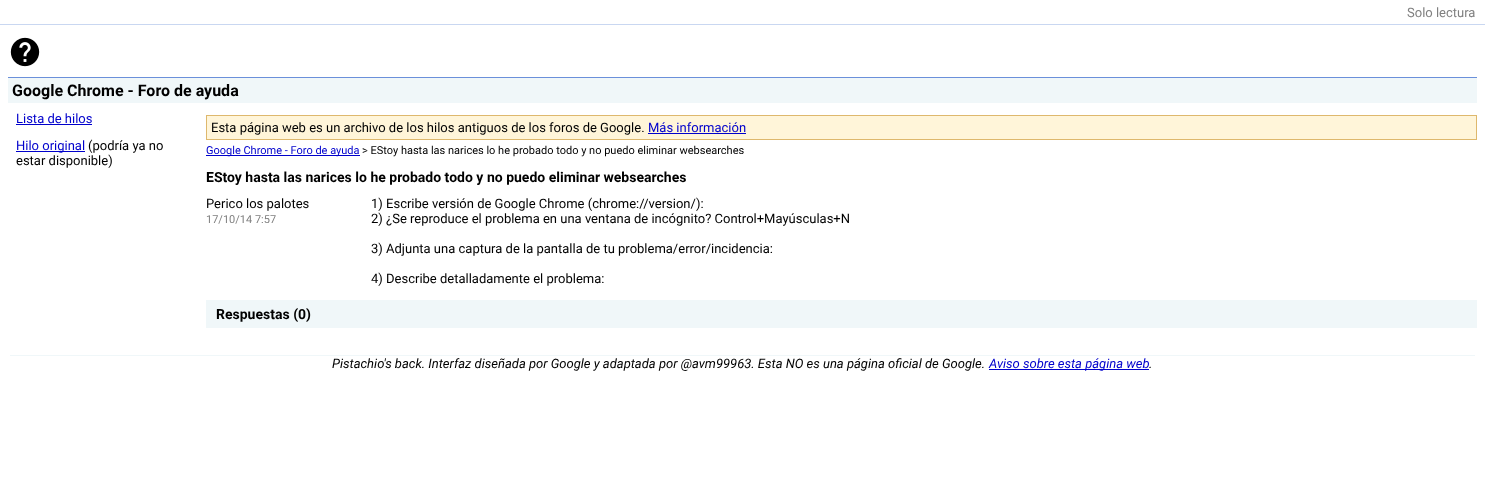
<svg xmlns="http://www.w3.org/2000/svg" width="1485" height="504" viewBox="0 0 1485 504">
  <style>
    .t1 { font: 13px Roboto; fill: #808080; }
    .t2 { font: bold 16px Roboto; fill: #000; }
    .t3 { font: 13px Roboto; fill: #00c; }
    .t4 { font: 13px Roboto; fill: #000; }
    .t5 { font: 11px Roboto; fill: #00c; }
    .t6 { font: 11px Roboto; fill: #000; }
    .t7 { font: bold 14px Roboto; fill: #000; }
    .t8 { font: 11px Roboto; fill: #808080; }
    .t9 { font: italic 13px Roboto; fill: #000; }
    .t10 { font: italic 13px Roboto; fill: #00c; }
  </style>
  <rect width="100%" height="100%" fill="#fff"/>
  <rect x="0" y="24" width="1485" height="1" fill="#c9d7f1"/>
  <text x="1407" y="17" class="t1">Solo lectura</text>
  <image x="10" y="37" width="30" height="30" href="images/1.png"/>
  <rect x="8" y="78" width="1469" height="25" fill="#f0f7f9"/>
  <rect x="8" y="77" width="1469" height="1" fill="#6b90da"/>
  <text x="12" y="96" class="t2">Google Chrome - Foro de ayuda</text>
  <text x="16" y="123" class="t3">Lista de hilos</text>
  <rect x="16" y="124" width="76" height="1" fill="#00c"/>
  <rect x="16" y="151" width="69" height="1" fill="#00c"/>
  <text x="16" y="150" class="t3">Hilo original</text>
  <text x="88" y="150" class="t4">(podría ya no</text>
  <text x="16" y="165" class="t4">estar disponible)</text>
  <rect x="206.5" y="115.5" width="1270" height="24" fill="#fff5d9" stroke="#deb86d"/>
  <text x="211" y="132" class="t4">Esta página web es un archivo de los hilos antiguos de los foros de Google.</text>
  <text x="648" y="132" class="t3">Más información</text>
  <rect x="648" y="133" width="98" height="1" fill="#00c"/>
  <rect x="206" y="155" width="154" height="1" fill="#00c"/>
  <text x="206" y="154" class="t5">Google Chrome - Foro de ayuda</text>
  <text x="362" y="154" class="t6">&gt; EStoy hasta las narices lo he probado todo y no puedo eliminar websearches</text>
  <text x="206" y="182" class="t7">EStoy hasta las narices lo he probado todo y no puedo eliminar websearches</text>
  <text x="206" y="208" class="t4">Perico los palotes</text>
  <text x="206" y="223" class="t8">17/10/14 7:57</text>
  <text x="371" y="208" class="t4">1) Escribe versión de Google Chrome (chrome://version/):</text>
  <text x="371" y="223" class="t4">2) ¿Se reproduce el problema en una ventana de incógnito? Control+Mayúsculas+N</text>
  <text x="371" y="253" class="t4">3) Adjunta una captura de la pantalla de tu problema/error/incidencia:</text>
  <text x="371" y="283" class="t4">4) Describe detalladamente el problema:</text>
  <rect x="206" y="300" width="1271" height="28" fill="#f0f7f9"/>
  <text x="216" y="319" class="t7">Respuestas (0)</text>
  <rect x="10" y="355" width="1465" height="1" fill="#f0f7f9"/>
  <text x="332" y="368" class="t9">Pistachio's back. Interfaz diseñada por Google y adaptada por @avm99963. Esta NO es una página oficial de Google.</text>
  <rect x="989" y="369" width="160" height="1" fill="#00c"/>
  <text x="989" y="368" class="t10">Aviso sobre esta página web</text>
  <text x="1149" y="368" class="t9">.</text>
</svg>
